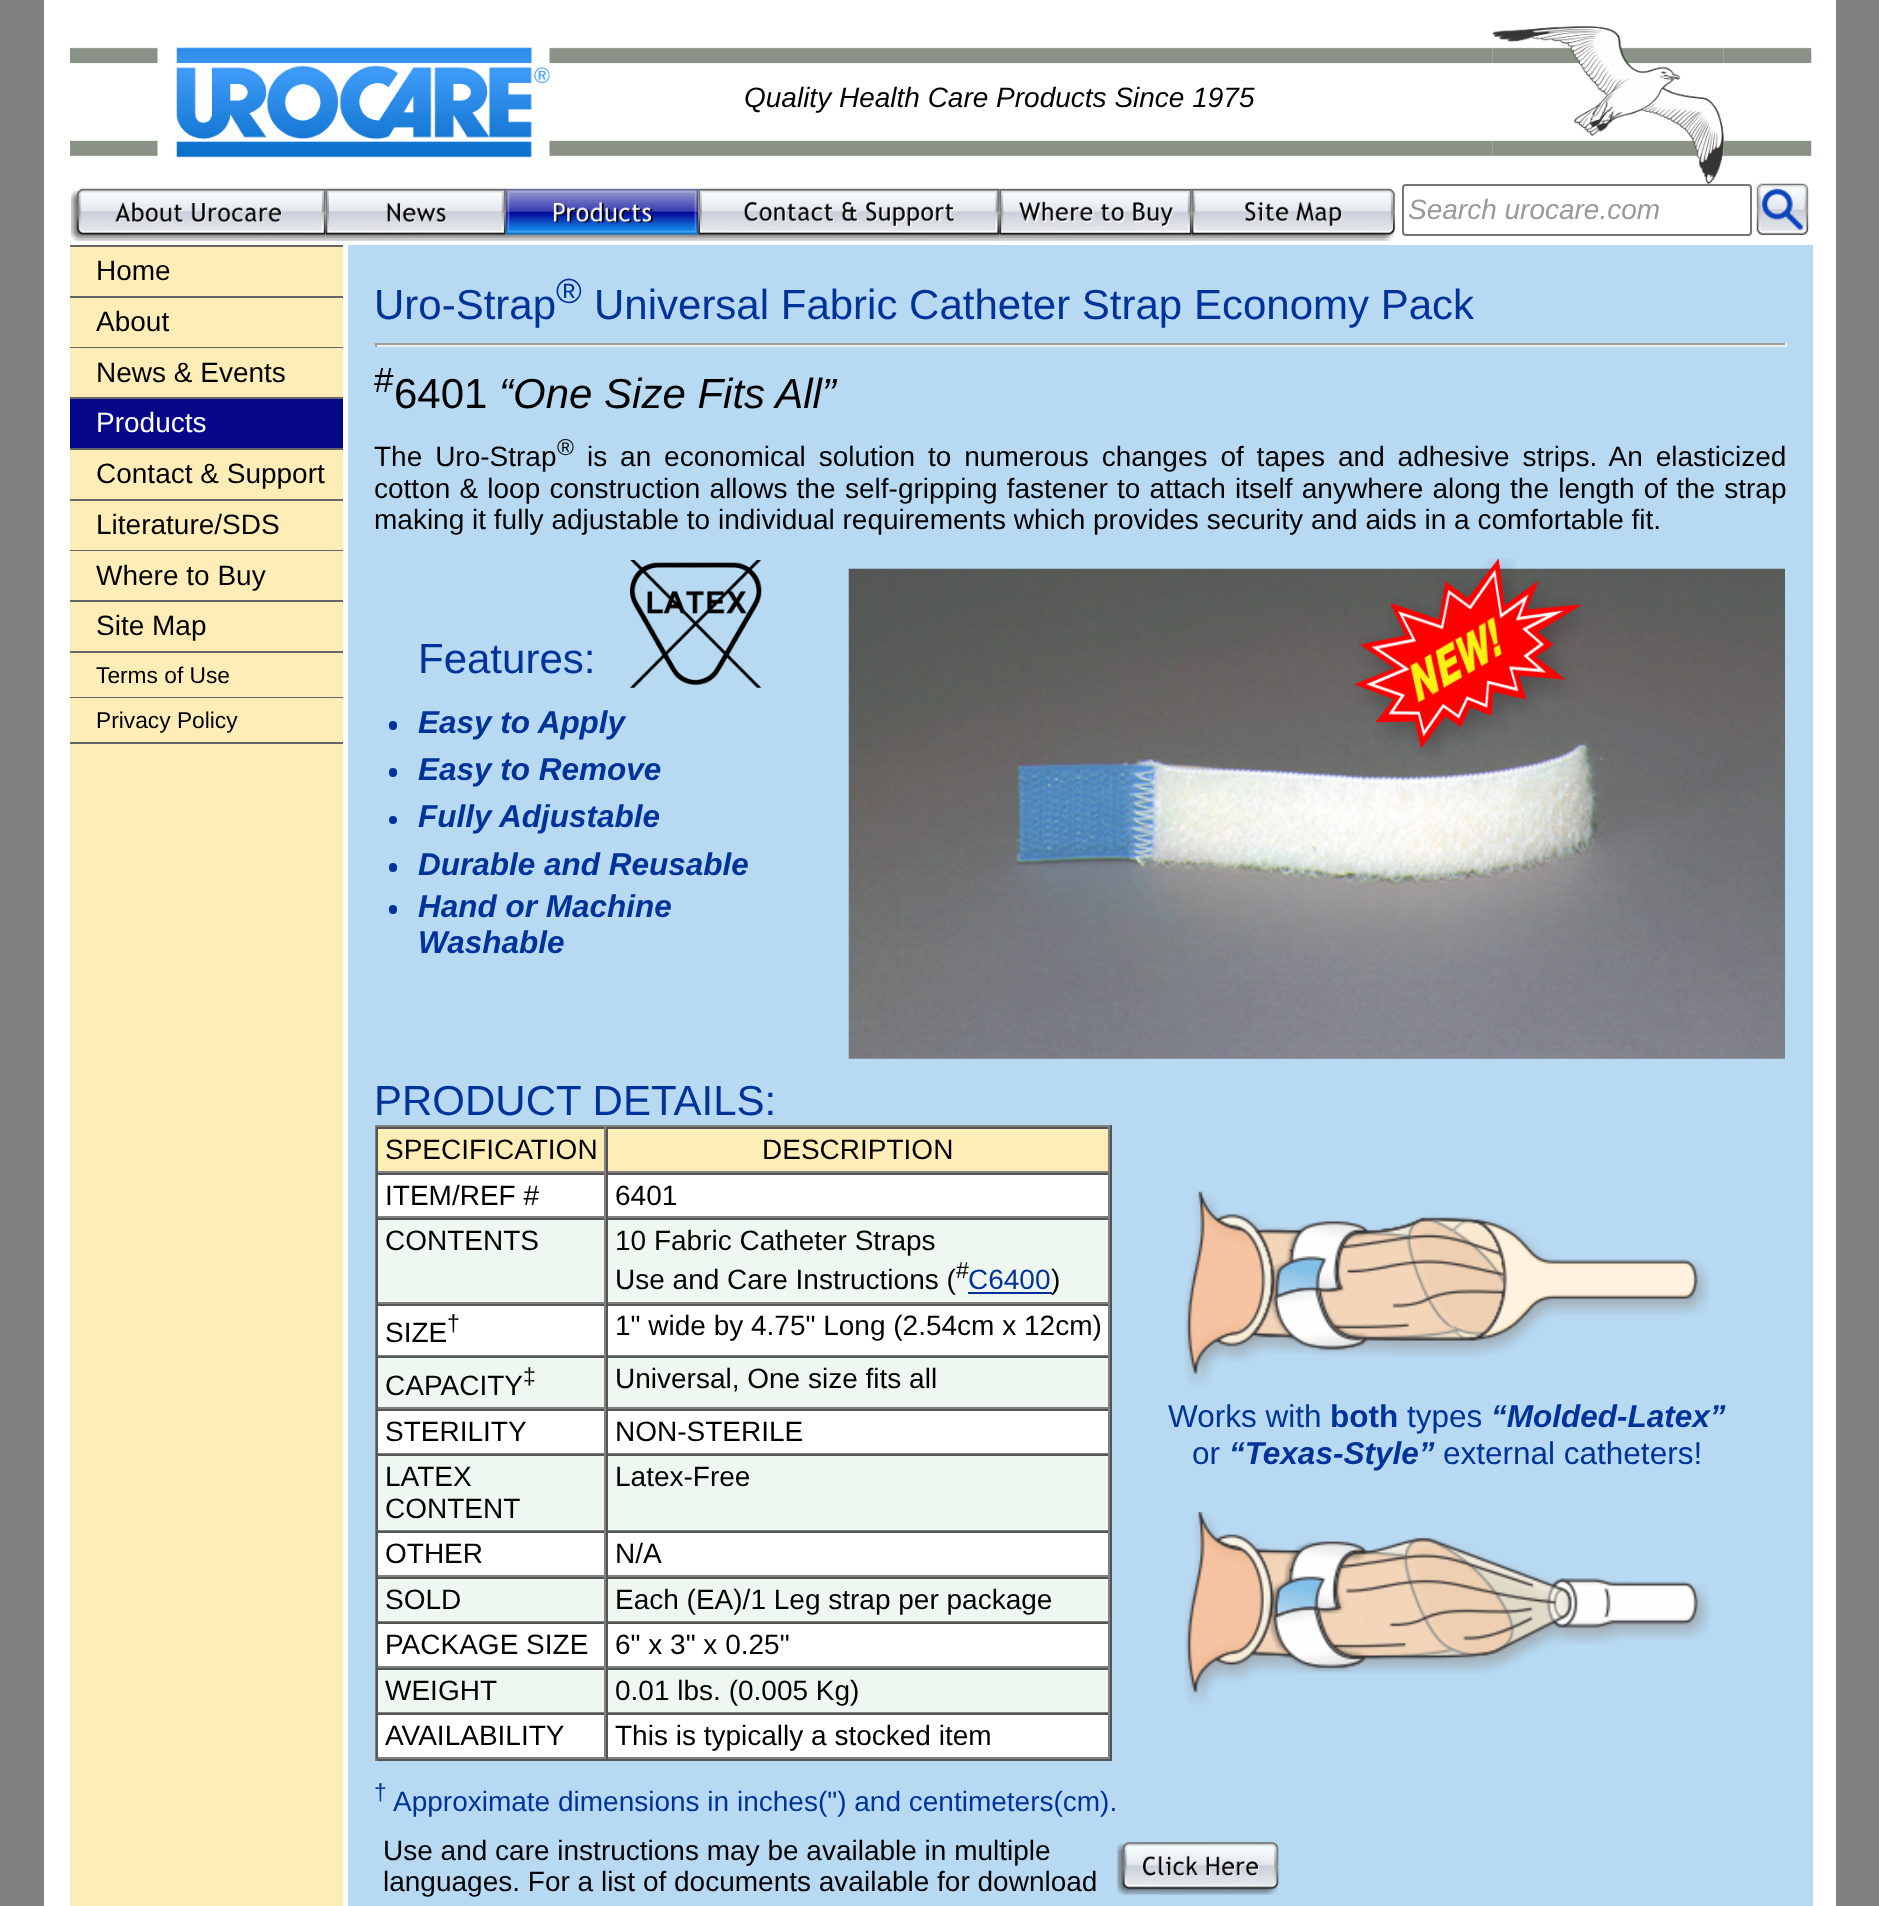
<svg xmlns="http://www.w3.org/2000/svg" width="1879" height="1906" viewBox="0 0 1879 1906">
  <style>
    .t1 { font: italic 28px Liberation Sans; fill: #000; }
    .t2 { font: italic 28px Liberation Sans; fill: #999; }
    .t3 { font: 28px Liberation Sans; fill: #000; }
    .t4 { font: 28px Liberation Sans; fill: #fff; }
    .t5 { font: 22.75px Liberation Sans; fill: #000; }
    .t6 { font: 42px Liberation Sans; fill: #039; }
    .t7 { font: 35px Liberation Sans; fill: #039; }
    .t8 { font: 35px Liberation Sans; fill: #000; }
    .t9 { font: 42px Liberation Sans; fill: #000; }
    .t10 { font: italic 42px Liberation Sans; fill: #000; }
    .t11 { font: 23px Liberation Sans; fill: #000; }
    .t12 { font: italic bold 31.5px Liberation Sans; fill: #039; }
    .t13 { font: 28px Liberation Sans; fill: #039; }
    .t14 { font: 31.5px Liberation Sans; fill: #039; }
    .t15 { font: bold 31.5px Liberation Sans; fill: #039; }
    .t16 { font: 23px Liberation Sans; fill: #039; }
  </style>
  <rect width="100%" height="100%" fill="#808080"/>
  <rect x="44" y="0" width="1792" height="1906" fill="#fff"/>
  <image x="70" y="47" width="88" height="110" href="images/1.png"/>
  <image x="176" y="47" width="374" height="111" href="images/2.png"/>
  <image x="549" y="47" width="944" height="110" href="images/3.png"/>
  <image x="1492" y="26" width="232" height="158" href="images/4.png"/>
  <image x="1723" y="47" width="89" height="110" href="images/5.png"/>
  <text x="744" y="107" class="t1">Quality Health Care Products Since 1975</text>
  <image x="71" y="188" width="255" height="53" href="images/6.png"/>
  <image x="325" y="188" width="181" height="53" href="images/7.png"/>
  <image x="505" y="188" width="194" height="53" href="images/8.png"/>
  <image x="698" y="188" width="302" height="53" href="images/9.png"/>
  <image x="999" y="188" width="193" height="53" href="images/10.png"/>
  <image x="1191" y="188" width="205" height="53" href="images/11.png"/>
  <rect x="1403" y="185" width="348" height="50" rx="3" fill="none" stroke="#767676" stroke-width="2"/>
  <text x="1408" y="219" class="t2">Search urocare.com</text>
  <image x="1756" y="183" width="54" height="52" href="images/12.png"/>
  <rect x="70" y="247" width="273" height="1659" fill="#feedb7"/>
  <rect x="70" y="245" width="273" height="2" fill="#666"/>
  <rect x="70" y="296" width="273" height="2" fill="#666"/>
  <text x="96" y="280" class="t3">Home</text>
  <rect x="70" y="347" width="273" height="1" fill="#666"/>
  <text x="96" y="331" class="t3">About</text>
  <rect x="70" y="397" width="273" height="2" fill="#666"/>
  <text x="96" y="382" class="t3">News &amp; Events</text>
  <rect x="70" y="399" width="273" height="49" fill="#060789"/>
  <rect x="70" y="448" width="273" height="2" fill="#666"/>
  <text x="96" y="432" class="t4">Products</text>
  <rect x="70" y="499" width="273" height="2" fill="#666"/>
  <text x="96" y="483" class="t3">Contact &amp; Support</text>
  <rect x="70" y="550" width="273" height="1" fill="#666"/>
  <text x="96" y="534" class="t3">Literature/SDS</text>
  <rect x="70" y="600" width="273" height="2" fill="#666"/>
  <text x="96" y="585" class="t3">Where to Buy</text>
  <rect x="70" y="651" width="273" height="2" fill="#666"/>
  <text x="96" y="635" class="t3">Site Map</text>
  <rect x="70" y="697" width="273" height="1" fill="#666"/>
  <text x="96" y="683" class="t5">Terms of Use</text>
  <rect x="70" y="742" width="273" height="2" fill="#666"/>
  <text x="96" y="728" class="t5">Privacy Policy</text>
  <rect x="348" y="245" width="1465" height="1661" fill="#b7d9f2"/>
  <text x="374" y="319" class="t6">Uro-Strap</text>
  <text x="556" y="303" class="t7">®</text>
  <text x="594" y="319" class="t6">Universal Fabric Catheter Strap Economy Pack</text>
  <rect x="375" y="343" width="1412" height="2" fill="#9f9f9f"/>
  <rect x="1785" y="343" width="2" height="4" fill="#eee"/>
  <rect x="375" y="345" width="1412" height="2" fill="#eee"/>
  <rect x="375" y="343" width="2" height="4" fill="#9f9f9f"/>
  <text x="374" y="392" class="t8">#</text>
  <text x="394" y="408" class="t9">6401</text>
  <text x="499" y="408" class="t10">“One Size Fits All”</text>
  <text x="374" y="466" word-spacing="5.1" class="t3">The Uro-Strap</text>
  <text x="557" y="455" class="t11">®</text>
  <text x="587" y="466" word-spacing="5.1" class="t3">is an economical solution to numerous changes of tapes and adhesive strips. An elasticized</text>
  <text x="374" y="498" word-spacing="1.4" class="t3">cotton &amp; loop construction allows the</text>
  <text x="845" y="498" word-spacing="1.4" class="t3">self-gripping fastener to attach itself anywhere along the length of the strap</text>
  <text x="374" y="529" class="t3">making it fully adjustable to individual requirements which provides security and aids in a comfortable fit.</text>
  <image x="848" y="568" width="937" height="491" href="images/15.png"/>
  <image x="1354" y="558" width="228" height="199" href="images/13.png"/>
  <text x="418" y="673" class="t6">Features:</text>
  <image x="630" y="560" width="132" height="128" href="images/14.png"/>
  <rect x="389" y="721" width="8" height="9" rx="4" fill="#039"/>
  <text x="418" y="733" class="t12">Easy to Apply</text>
  <rect x="389" y="768" width="8" height="9" rx="4" fill="#039"/>
  <text x="418" y="780" class="t12">Easy to Remove</text>
  <circle cx="393" cy="820" r="4" fill="#039"/>
  <text x="418" y="827" class="t12">Fully Adjustable</text>
  <rect x="389" y="863" width="8" height="9" rx="4" fill="#039"/>
  <text x="418" y="875" class="t12">Durable and Reusable</text>
  <rect x="389" y="905" width="8" height="9" rx="4" fill="#039"/>
  <text x="418" y="917" class="t12">Hand or Machine</text>
  <text x="418" y="953" class="t12">Washable</text>
  <text x="374" y="1115" class="t6">PRODUCT DETAILS:</text>
  <rect x="375" y="1125" width="736" height="2" fill="#808080"/>
  <rect x="1110" y="1125" width="2" height="636" fill="#555"/>
  <rect x="375" y="1759" width="736" height="2" fill="#555"/>
  <rect x="375" y="1125" width="2" height="636" fill="#808080"/>
  <rect x="378" y="1129" width="730" height="42" fill="#feedb7"/>
  <rect x="376" y="1127" width="734" height="2" fill="#555"/>
  <rect x="604" y="1127" width="2" height="46" fill="#808080"/>
  <rect x="376" y="1171" width="230" height="2" fill="#808080"/>
  <rect x="376" y="1127" width="2" height="46" fill="#555"/>
  <text x="385" y="1159" class="t3">SPECIFICATION</text>
  <rect x="1108" y="1127" width="2" height="46" fill="#808080"/>
  <rect x="606" y="1171" width="504" height="2" fill="#808080"/>
  <rect x="606" y="1127" width="2" height="46" fill="#555"/>
  <text x="762" y="1159" class="t3">DESCRIPTION</text>
  <rect x="378" y="1175" width="730" height="41" fill="#fff"/>
  <rect x="376" y="1173" width="734" height="2" fill="#555"/>
  <rect x="604" y="1173" width="2" height="45" fill="#808080"/>
  <rect x="376" y="1216" width="230" height="2" fill="#808080"/>
  <rect x="376" y="1173" width="2" height="45" fill="#555"/>
  <text x="385" y="1205" class="t3">ITEM/REF #</text>
  <rect x="1108" y="1173" width="2" height="45" fill="#808080"/>
  <rect x="606" y="1216" width="504" height="2" fill="#808080"/>
  <rect x="606" y="1173" width="2" height="45" fill="#555"/>
  <text x="615" y="1205" class="t3">6401</text>
  <rect x="378" y="1220" width="730" height="82" fill="#eff7f1"/>
  <rect x="376" y="1218" width="734" height="2" fill="#555"/>
  <rect x="604" y="1218" width="2" height="86" fill="#808080"/>
  <rect x="376" y="1302" width="230" height="2" fill="#808080"/>
  <rect x="376" y="1218" width="2" height="86" fill="#555"/>
  <text x="385" y="1250" class="t3">CONTENTS</text>
  <rect x="1108" y="1218" width="2" height="86" fill="#808080"/>
  <rect x="606" y="1302" width="504" height="2" fill="#808080"/>
  <rect x="606" y="1218" width="2" height="86" fill="#555"/>
  <text x="615" y="1250" class="t3">10 Fabric Catheter Straps</text>
  <text x="615" y="1289" class="t3">Use and Care Instructions (</text>
  <text x="956" y="1278" class="t11">#</text>
  <text x="968" y="1289" class="t13">C6400</text>
  <rect x="968" y="1292" width="84" height="2" fill="#039"/>
  <text x="1051" y="1289" class="t3">)</text>
  <rect x="378" y="1306" width="730" height="49" fill="#fff"/>
  <rect x="376" y="1304" width="734" height="2" fill="#555"/>
  <rect x="604" y="1304" width="2" height="52" fill="#808080"/>
  <rect x="376" y="1355" width="230" height="1" fill="#808080"/>
  <rect x="376" y="1304" width="2" height="52" fill="#555"/>
  <text x="385" y="1342" class="t3">SIZE</text>
  <text x="447" y="1331" class="t11">†</text>
  <rect x="1108" y="1304" width="2" height="52" fill="#808080"/>
  <rect x="606" y="1355" width="504" height="1" fill="#808080"/>
  <rect x="606" y="1304" width="2" height="52" fill="#555"/>
  <text x="615" y="1335" class="t3">1" wide by 4.75" Long (2.54cm x 12cm)</text>
  <rect x="378" y="1358" width="730" height="49" fill="#eff7f1"/>
  <rect x="376" y="1356" width="734" height="2" fill="#555"/>
  <rect x="604" y="1356" width="2" height="53" fill="#808080"/>
  <rect x="376" y="1407" width="230" height="2" fill="#808080"/>
  <rect x="376" y="1356" width="2" height="53" fill="#555"/>
  <text x="385" y="1395" class="t3">CAPACITY</text>
  <text x="523" y="1384" class="t11">‡</text>
  <rect x="1108" y="1356" width="2" height="53" fill="#808080"/>
  <rect x="606" y="1407" width="504" height="2" fill="#808080"/>
  <rect x="606" y="1356" width="2" height="53" fill="#555"/>
  <text x="615" y="1388" class="t3">Universal, One size fits all</text>
  <rect x="378" y="1411" width="730" height="42" fill="#fff"/>
  <rect x="376" y="1409" width="734" height="2" fill="#555"/>
  <rect x="604" y="1409" width="2" height="45" fill="#808080"/>
  <rect x="376" y="1453" width="230" height="1" fill="#808080"/>
  <rect x="376" y="1409" width="2" height="45" fill="#555"/>
  <text x="385" y="1441" class="t3">STERILITY</text>
  <rect x="1108" y="1409" width="2" height="45" fill="#808080"/>
  <rect x="606" y="1453" width="504" height="1" fill="#808080"/>
  <rect x="606" y="1409" width="2" height="45" fill="#555"/>
  <text x="615" y="1441" class="t3">NON-STERILE</text>
  <rect x="378" y="1456" width="730" height="74" fill="#eff7f1"/>
  <rect x="376" y="1454" width="734" height="2" fill="#555"/>
  <rect x="604" y="1454" width="2" height="77" fill="#808080"/>
  <rect x="376" y="1530" width="230" height="1" fill="#808080"/>
  <rect x="376" y="1454" width="2" height="77" fill="#555"/>
  <text x="385" y="1486" class="t3">LATEX</text>
  <text x="385" y="1518" class="t3">CONTENT</text>
  <rect x="1108" y="1454" width="2" height="77" fill="#808080"/>
  <rect x="606" y="1530" width="504" height="1" fill="#808080"/>
  <rect x="606" y="1454" width="2" height="77" fill="#555"/>
  <text x="615" y="1486" class="t3">Latex-Free</text>
  <rect x="378" y="1533" width="730" height="42" fill="#fff"/>
  <rect x="376" y="1531" width="734" height="2" fill="#555"/>
  <rect x="604" y="1531" width="2" height="46" fill="#808080"/>
  <rect x="376" y="1575" width="230" height="2" fill="#808080"/>
  <rect x="376" y="1531" width="2" height="46" fill="#555"/>
  <text x="385" y="1563" class="t3">OTHER</text>
  <rect x="1108" y="1531" width="2" height="46" fill="#808080"/>
  <rect x="606" y="1575" width="504" height="2" fill="#808080"/>
  <rect x="606" y="1531" width="2" height="46" fill="#555"/>
  <text x="615" y="1563" class="t3">N/A</text>
  <rect x="378" y="1579" width="730" height="42" fill="#eff7f1"/>
  <rect x="376" y="1577" width="734" height="2" fill="#555"/>
  <rect x="604" y="1577" width="2" height="45" fill="#808080"/>
  <rect x="376" y="1621" width="230" height="1" fill="#808080"/>
  <rect x="376" y="1577" width="2" height="45" fill="#555"/>
  <text x="385" y="1609" class="t3">SOLD</text>
  <rect x="1108" y="1577" width="2" height="45" fill="#808080"/>
  <rect x="606" y="1621" width="504" height="1" fill="#808080"/>
  <rect x="606" y="1577" width="2" height="45" fill="#555"/>
  <text x="615" y="1609" class="t3">Each (EA)/1 Leg strap per package</text>
  <rect x="378" y="1624" width="730" height="42" fill="#fff"/>
  <rect x="376" y="1622" width="734" height="2" fill="#555"/>
  <rect x="604" y="1622" width="2" height="46" fill="#808080"/>
  <rect x="376" y="1666" width="230" height="2" fill="#808080"/>
  <rect x="376" y="1622" width="2" height="46" fill="#555"/>
  <text x="385" y="1654" class="t3">PACKAGE SIZE</text>
  <rect x="1108" y="1622" width="2" height="46" fill="#808080"/>
  <rect x="606" y="1666" width="504" height="2" fill="#808080"/>
  <rect x="606" y="1622" width="2" height="46" fill="#555"/>
  <text x="615" y="1654" class="t3">6" x 3" x 0.25"</text>
  <rect x="378" y="1670" width="730" height="42" fill="#eff7f1"/>
  <rect x="376" y="1668" width="734" height="2" fill="#555"/>
  <rect x="604" y="1668" width="2" height="45" fill="#808080"/>
  <rect x="376" y="1712" width="230" height="1" fill="#808080"/>
  <rect x="376" y="1668" width="2" height="45" fill="#555"/>
  <text x="385" y="1700" class="t3">WEIGHT</text>
  <rect x="1108" y="1668" width="2" height="45" fill="#808080"/>
  <rect x="606" y="1712" width="504" height="1" fill="#808080"/>
  <rect x="606" y="1668" width="2" height="45" fill="#555"/>
  <text x="615" y="1700" class="t3">0.01 lbs. (0.005 Kg)</text>
  <rect x="378" y="1715" width="730" height="42" fill="#fff"/>
  <rect x="376" y="1713" width="734" height="2" fill="#555"/>
  <rect x="604" y="1713" width="2" height="46" fill="#808080"/>
  <rect x="376" y="1757" width="230" height="2" fill="#808080"/>
  <rect x="376" y="1713" width="2" height="46" fill="#555"/>
  <text x="385" y="1745" class="t3">AVAILABILITY</text>
  <rect x="1108" y="1713" width="2" height="46" fill="#808080"/>
  <rect x="606" y="1757" width="504" height="2" fill="#808080"/>
  <rect x="606" y="1713" width="2" height="46" fill="#555"/>
  <text x="615" y="1745" class="t3">This is typically a stocked item</text>
  <image x="1184" y="1191" width="526" height="195" href="images/16.png"/>
  <text x="1168" y="1427" class="t14">Works with</text>
  <text x="1330" y="1427" class="t15">both</text>
  <text x="1407" y="1427" class="t14">types</text>
  <text x="1491" y="1427" class="t12">“Molded-Latex”</text>
  <text x="1192" y="1464" class="t14">or</text>
  <text x="1229" y="1464" class="t12">“Texas-Style”</text>
  <text x="1443" y="1464" class="t14">external catheters!</text>
  <image x="1184" y="1512" width="526" height="193" href="images/17.png"/>
  <text x="374" y="1800" class="t16">†</text>
  <text x="393" y="1811" class="t13">Approximate dimensions in inches(") and centimeters(cm).</text>
  <text x="383" y="1860" class="t3">Use and care instructions may be available in multiple</text>
  <text x="383" y="1891" class="t3">languages. For a list of documents available for download</text>
  <image x="1117" y="1841" width="162" height="54" href="images/18.png"/>
</svg>
